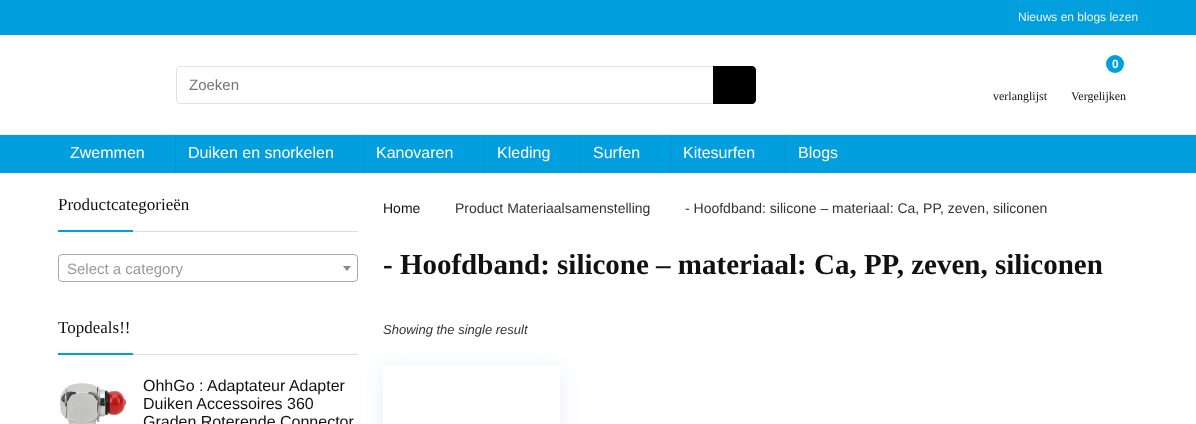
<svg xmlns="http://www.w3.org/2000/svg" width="1196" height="424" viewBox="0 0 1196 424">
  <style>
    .t1 { font: 12px Liberation Sans; fill: #f4f4f4; }
    .t2 { font: 15px Liberation Sans; fill: #757575; }
    .t3 { font: 12px Liberation Serif; fill: #111; }
    .t4 { font: bold 12px Liberation Sans; fill: #fff; }
    .t5 { font: 16px Liberation Sans; fill: #fff; }
    .t6 { font: 17px Liberation Serif; fill: #111; }
    .t7 { font: 15px Liberation Sans; fill: #999; }
    .t8 { font: 16px Liberation Sans; fill: #111; }
    .t9 { font: 14px Liberation Sans; fill: #111; }
    .t10 { font: 14px Liberation Sans; fill: #333; }
    .t11 { font: bold 29px Liberation Serif; fill: #111; }
    .t12 { font: italic 13px Liberation Sans; fill: #333; }
  </style>
  <defs>
    <clipPath id="clip1"><path d="M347 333H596V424H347ZM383 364H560V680H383Z" clip-rule="evenodd"/></clipPath>
  </defs>
  <rect width="100%" height="100%" fill="#fff"/>
  <rect x="0" y="0" width="1196" height="35" fill="#019fde"/>
  <text x="1018" y="21" class="t1">Nieuws en blogs lezen</text>
  <path d="M180 66H713V104H180C178 104 176 102 176 100V70C176 68 178 66 180 66ZM180 67H713V103H180C178 103 177 102 177 100V70C177 68 178 67 180 67Z" fill="#e1e1e1" fill-rule="evenodd"/>
  <text x="189" y="90" class="t2">Zoeken</text>
  <path d="M713 66H752C754 66 756 68 756 70V100C756 102 754 104 752 104H713Z" fill="#000"/>
  <text x="993" y="100" class="t3">verlanglijst</text>
  <circle cx="1115" cy="64" r="9" fill="#019fde"/>
  <text x="1112" y="68" class="t4">0</text>
  <text x="1071" y="100" class="t3">Vergelijken</text>
  <rect x="0" y="135" width="1196" height="38" fill="#019fde"/>
  <rect x="0" y="134" width="1196" height="1" fill="#eee"/>
  <rect x="0" y="173" width="1196" height="1" fill="#eee"/>
  <rect x="175" y="135" width="1" height="38" fill="#0192cc"/>
  <text x="70" y="158" class="t5">Zwemmen</text>
  <rect x="363" y="135" width="1" height="38" fill="#0192cc"/>
  <text x="188" y="158" class="t5">Duiken en snorkelen</text>
  <rect x="484" y="135" width="1" height="38" fill="#0192cc"/>
  <text x="376" y="158" class="t5">Kanovaren</text>
  <rect x="580" y="135" width="1" height="38" fill="#0192cc"/>
  <text x="497" y="158" class="t5">Kleding</text>
  <rect x="670" y="135" width="1" height="38" fill="#0192cc"/>
  <text x="593" y="158" class="t5">Surfen</text>
  <rect x="785" y="135" width="1" height="38" fill="#0192cc"/>
  <text x="683" y="158" class="t5">Kitesurfen</text>
  <text x="798" y="158" class="t5">Blogs</text>
  <rect x="133" y="231" width="225" height="1" fill="#ddd"/>
  <text x="58" y="210" class="t6">Productcategorieën</text>
  <rect x="58" y="230" width="75" height="2" fill="#019fde"/>
  <rect x="58.5" y="254.5" width="299" height="27" rx="3.5" fill="none" stroke="#aaa"/>
  <text x="67" y="274" class="t7">Select a category</text>
  <path d="M343 266H351L347 271Z" fill="#888"/>
  <rect x="133" y="354" width="225" height="1" fill="#ddd"/>
  <text x="58" y="333" class="t6">Topdeals!!</text>
  <rect x="58" y="353" width="75" height="2" fill="#019fde"/>
  <image x="60" y="383" width="67" height="41" href="images/1.png"/>
  <text x="143" y="391" class="t8">OhhGo : Adaptateur Adapter</text>
  <text x="143" y="409" class="t8">Duiken Accessoires 360</text>
  <text x="143" y="427" class="t8">Graden Roterende Connector</text>
  <text x="383" y="213" class="t9">Home</text>
  <text x="455" y="213" class="t10">Product Materiaalsamenstelling</text>
  <text x="685" y="213" class="t10">- Hoofdband: silicone – materiaal: Ca, PP, zeven, siliconen</text>
  <text x="383" y="274" class="t11">- Hoofdband: silicone – materiaal: Ca, PP, zeven, siliconen</text>
  <text x="383" y="334" class="t12">Showing the single result</text>
  <g clip-path="url(#clip1)">
    <rect x="383" y="369" width="177" height="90" fill="#bccfdb59" filter="blur(11.5px)"/>
  </g>
  <rect x="383" y="364" width="177" height="1" fill="#f8f8f8"/>
</svg>
